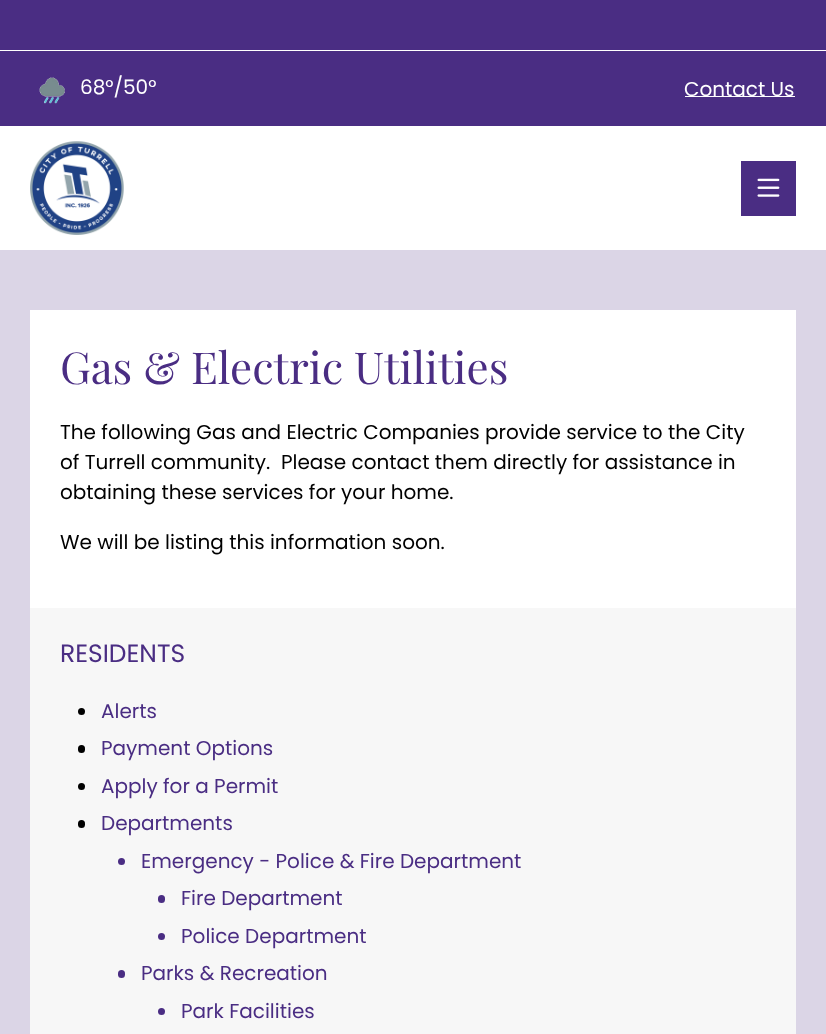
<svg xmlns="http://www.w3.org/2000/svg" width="826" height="1034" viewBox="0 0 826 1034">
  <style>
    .t1 { font: 20px Poppins; fill: #fff; }
    .t2 { font: 44px Playfair Display; fill: #4a2d83; }
    .t3 { font: 20px Poppins; fill: #000; }
    .t4 { font: 25px Poppins; fill: #4a2d83; }
    .t5 { font: 20px Poppins; fill: #4a2d83; }
  </style>
  <rect width="100%" height="100%" fill="#dbd5e6"/>
  <rect x="0" y="0" width="826" height="126" fill="#4a2d83"/>
  <rect x="0" y="50" width="826" height="1" fill="#fff"/>
  <image x="39" y="77" width="26" height="27" href="images/1.png"/>
  <text x="80" y="94" class="t1">68°/50°</text>
  <rect x="685" y="96" width="110" height="1" fill="#fff"/>
  <text x="684" y="96" class="t1">Contact Us</text>
  <rect x="0" y="126" width="826" height="124" fill="#fff"/>
  <image x="30" y="141" width="94" height="94" href="images/2.png"/>
  <rect x="741" y="161" width="55" height="55" fill="#4a2d83"/>
  <image x="757" y="178" width="23" height="19" href="images/3.png"/>
  <rect x="30" y="310" width="766" height="298" fill="#fff"/>
  <text x="60" y="384" class="t2">Gas &amp; Electric Utilities</text>
  <text x="60" y="439" class="t3">The following Gas and Electric Companies provide service to the City</text>
  <text x="60" y="469" class="t3" xml:space="preserve">of Turrell community.  Please contact them directly for assistance in</text>
  <text x="60" y="499" class="t3">obtaining these services for your home.</text>
  <text x="60" y="549" class="t3">We will be listing this information soon.</text>
  <rect x="30" y="608" width="766" height="426" fill="#f7f7f7"/>
  <text x="60" y="662" class="t4">RESIDENTS</text>
  <circle cx="81.5" cy="711.5" r="3.5" fill="#000"/>
  <text x="101" y="718" class="t5">Alerts</text>
  <rect x="78" y="745" width="7" height="8" rx="3.5" fill="#000"/>
  <text x="101" y="755" class="t5">Payment Options</text>
  <circle cx="81.5" cy="786.5" r="3.5" fill="#000"/>
  <text x="101" y="793" class="t5">Apply for a Permit</text>
  <rect x="78" y="820" width="7" height="8" rx="3.5" fill="#000"/>
  <text x="101" y="830" class="t5">Departments</text>
  <circle cx="121.5" cy="861.5" r="3.5" fill="#4a2d83"/>
  <text x="141" y="868" class="t5">Emergency - Police &amp; Fire Department</text>
  <rect x="158" y="895" width="7" height="8" rx="3.5" fill="#4a2d83"/>
  <text x="181" y="905" class="t5">Fire Department</text>
  <circle cx="161.5" cy="936.5" r="3.5" fill="#4a2d83"/>
  <text x="181" y="943" class="t5">Police Department</text>
  <rect x="118" y="970" width="7" height="8" rx="3.5" fill="#4a2d83"/>
  <text x="141" y="980" class="t5">Parks &amp; Recreation</text>
  <circle cx="161.5" cy="1011.5" r="3.5" fill="#4a2d83"/>
  <text x="181" y="1018" class="t5">Park Facilities</text>
</svg>
